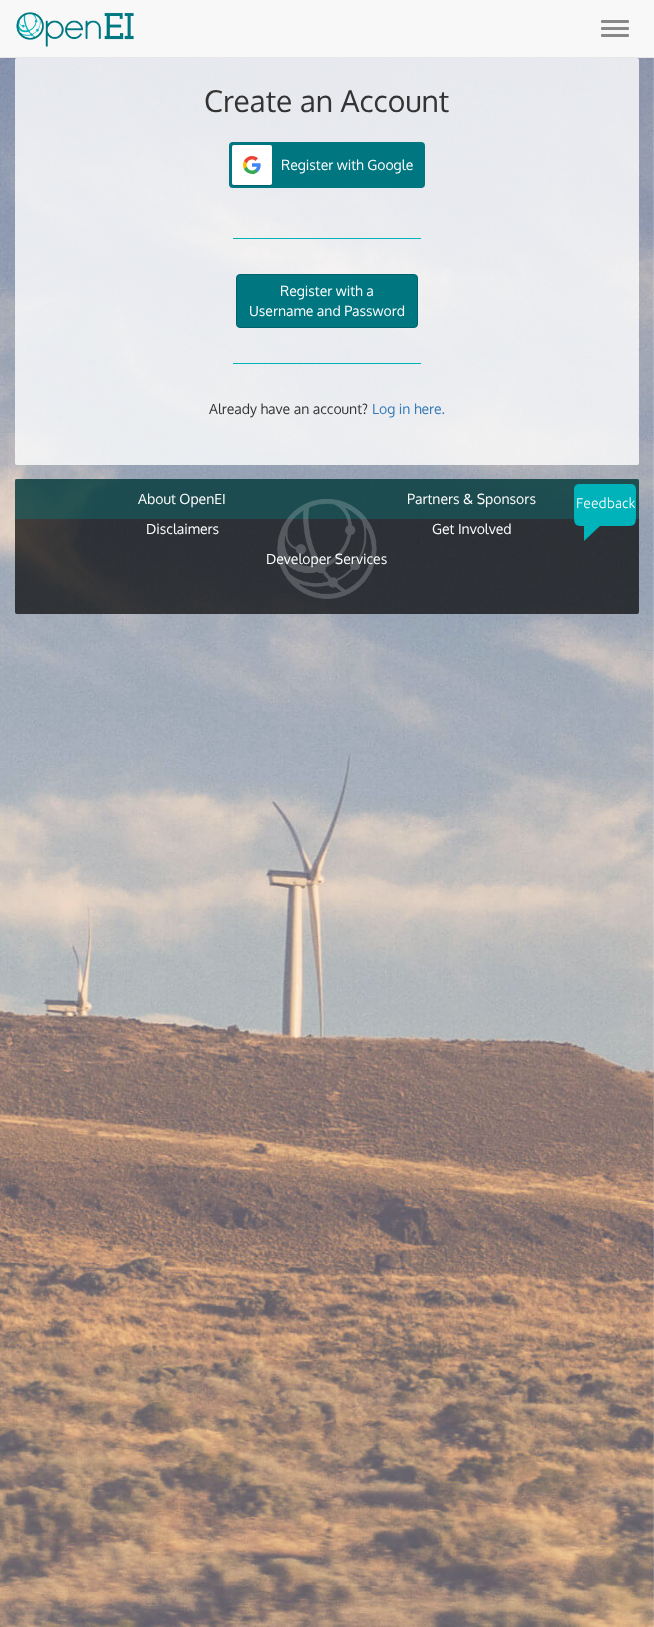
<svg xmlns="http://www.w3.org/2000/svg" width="654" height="1627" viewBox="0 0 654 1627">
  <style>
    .t1 { font: 30px Oxygen; fill: #333; }
    .t2 { font: 14px Oxygen; fill: #fff; }
    .t3 { font: 14px Oxygen; fill: #333; }
    .t4 { font: 14px Oxygen; fill: #337ab7; }
    .t5 { font: 300 14px Ubuntu; fill: #fff; }
  </style>
  <rect width="100%" height="100%" fill="#fff"/>
  <rect x="0" y="0" width="654" height="57" fill="#f8f8f8"/>
  <rect x="0" y="57" width="654" height="1" fill="#e7e7e7"/>
  <image x="16" y="12" width="118" height="35" href="images/1.png"/>
  <rect x="601" y="20" width="28" height="3" rx="1" fill="#888"/>
  <rect x="601" y="27" width="28" height="3" rx="1" fill="#888"/>
  <rect x="601" y="34" width="28" height="3" rx="1" fill="#888"/>
  <image x="0" y="58" width="654" height="1569" href="images/2.png"/>
  <rect x="15" y="58" width="624" height="407" rx="2" fill="#ffffffcc"/>
  <text x="204" y="112" class="t1">Create an Account</text>
  <rect x="229" y="142" width="196" height="46" rx="4" fill="#007680"/>
  <image x="232" y="145" width="40" height="41" href="images/3.png"/>
  <text x="281" y="170" class="t2">Register with Google</text>
  <rect x="233" y="238" width="188" height="1" fill="#00b2b9"/>
  <rect x="236.5" y="274.5" width="181" height="53" rx="3.5" fill="#007680" stroke="#00626d"/>
  <text x="280" y="296" class="t2">Register with a</text>
  <text x="249" y="316" class="t2">Username and Password</text>
  <rect x="233" y="363" width="188" height="1" fill="#00b2b9"/>
  <text x="209" y="414" class="t3">Already have an account?</text>
  <text x="372" y="414" class="t4">Log in here.</text>
  <rect x="15" y="479" width="624" height="135" rx="2" fill="#000000b3"/>
  <rect x="15" y="479" width="624" height="40" fill="#00808059"/>
  <text x="138" y="504" class="t2">About OpenEI</text>
  <text x="407" y="504" class="t2">Partners &amp; Sponsors</text>
  <text x="146" y="534" class="t2">Disclaimers</text>
  <text x="432" y="534" class="t2">Get Involved</text>
  <image x="277" y="499" width="100" height="100" href="images/4.png"/>
  <text x="266" y="564" class="t2">Developer Services</text>
  <path d="M579 484H632C637 485 636 491 636 494V515C636 525 635 526 626 526H600L584 541V526C575 526 574 525 574 515V494C574 491 573 484 579 484Z" fill="#00b2b9"/>
  <text x="576" y="508" class="t5">Feedback</text>
</svg>
